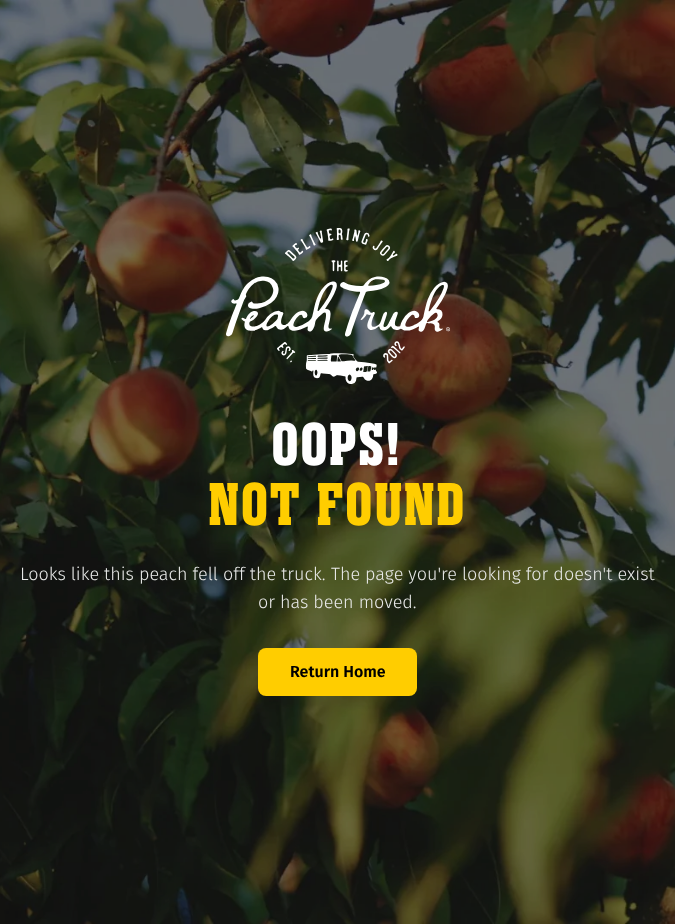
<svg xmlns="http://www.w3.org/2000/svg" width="675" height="924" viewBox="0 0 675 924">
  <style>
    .t1 { font: bold 60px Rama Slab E; letter-spacing: 3px; fill: #fff; }
    .t2 { font: bold 60px Rama Slab E; letter-spacing: 3px; fill: #ffcd00; }
    .t3 { font: 300 18px Fira Sans; fill: #e8e9e8; }
    .t4 { font: 600 16px Fira Sans; fill: #000; }
  </style>
  <rect width="100%" height="100%" fill="#fff"/>
  <image x="0" y="0" width="675" height="924" href="images/1.png"/>
  <image x="226" y="228" width="224" height="156" href="images/2.png"/>
  <text x="272" y="465" class="t1">OOPS!</text>
  <text x="209" y="525" class="t2">NOT FOUND</text>
  <text x="20" y="580" class="t3">Looks like this peach fell off the truck.</text>
  <text x="331" y="580" class="t3">The page you're looking for doesn't exist</text>
  <text x="258" y="608" class="t3">or has been moved.</text>
  <rect x="258" y="648" width="159" height="48" rx="8" fill="#ffcd00"/>
  <text x="290" y="677" class="t4">Return Home</text>
</svg>
